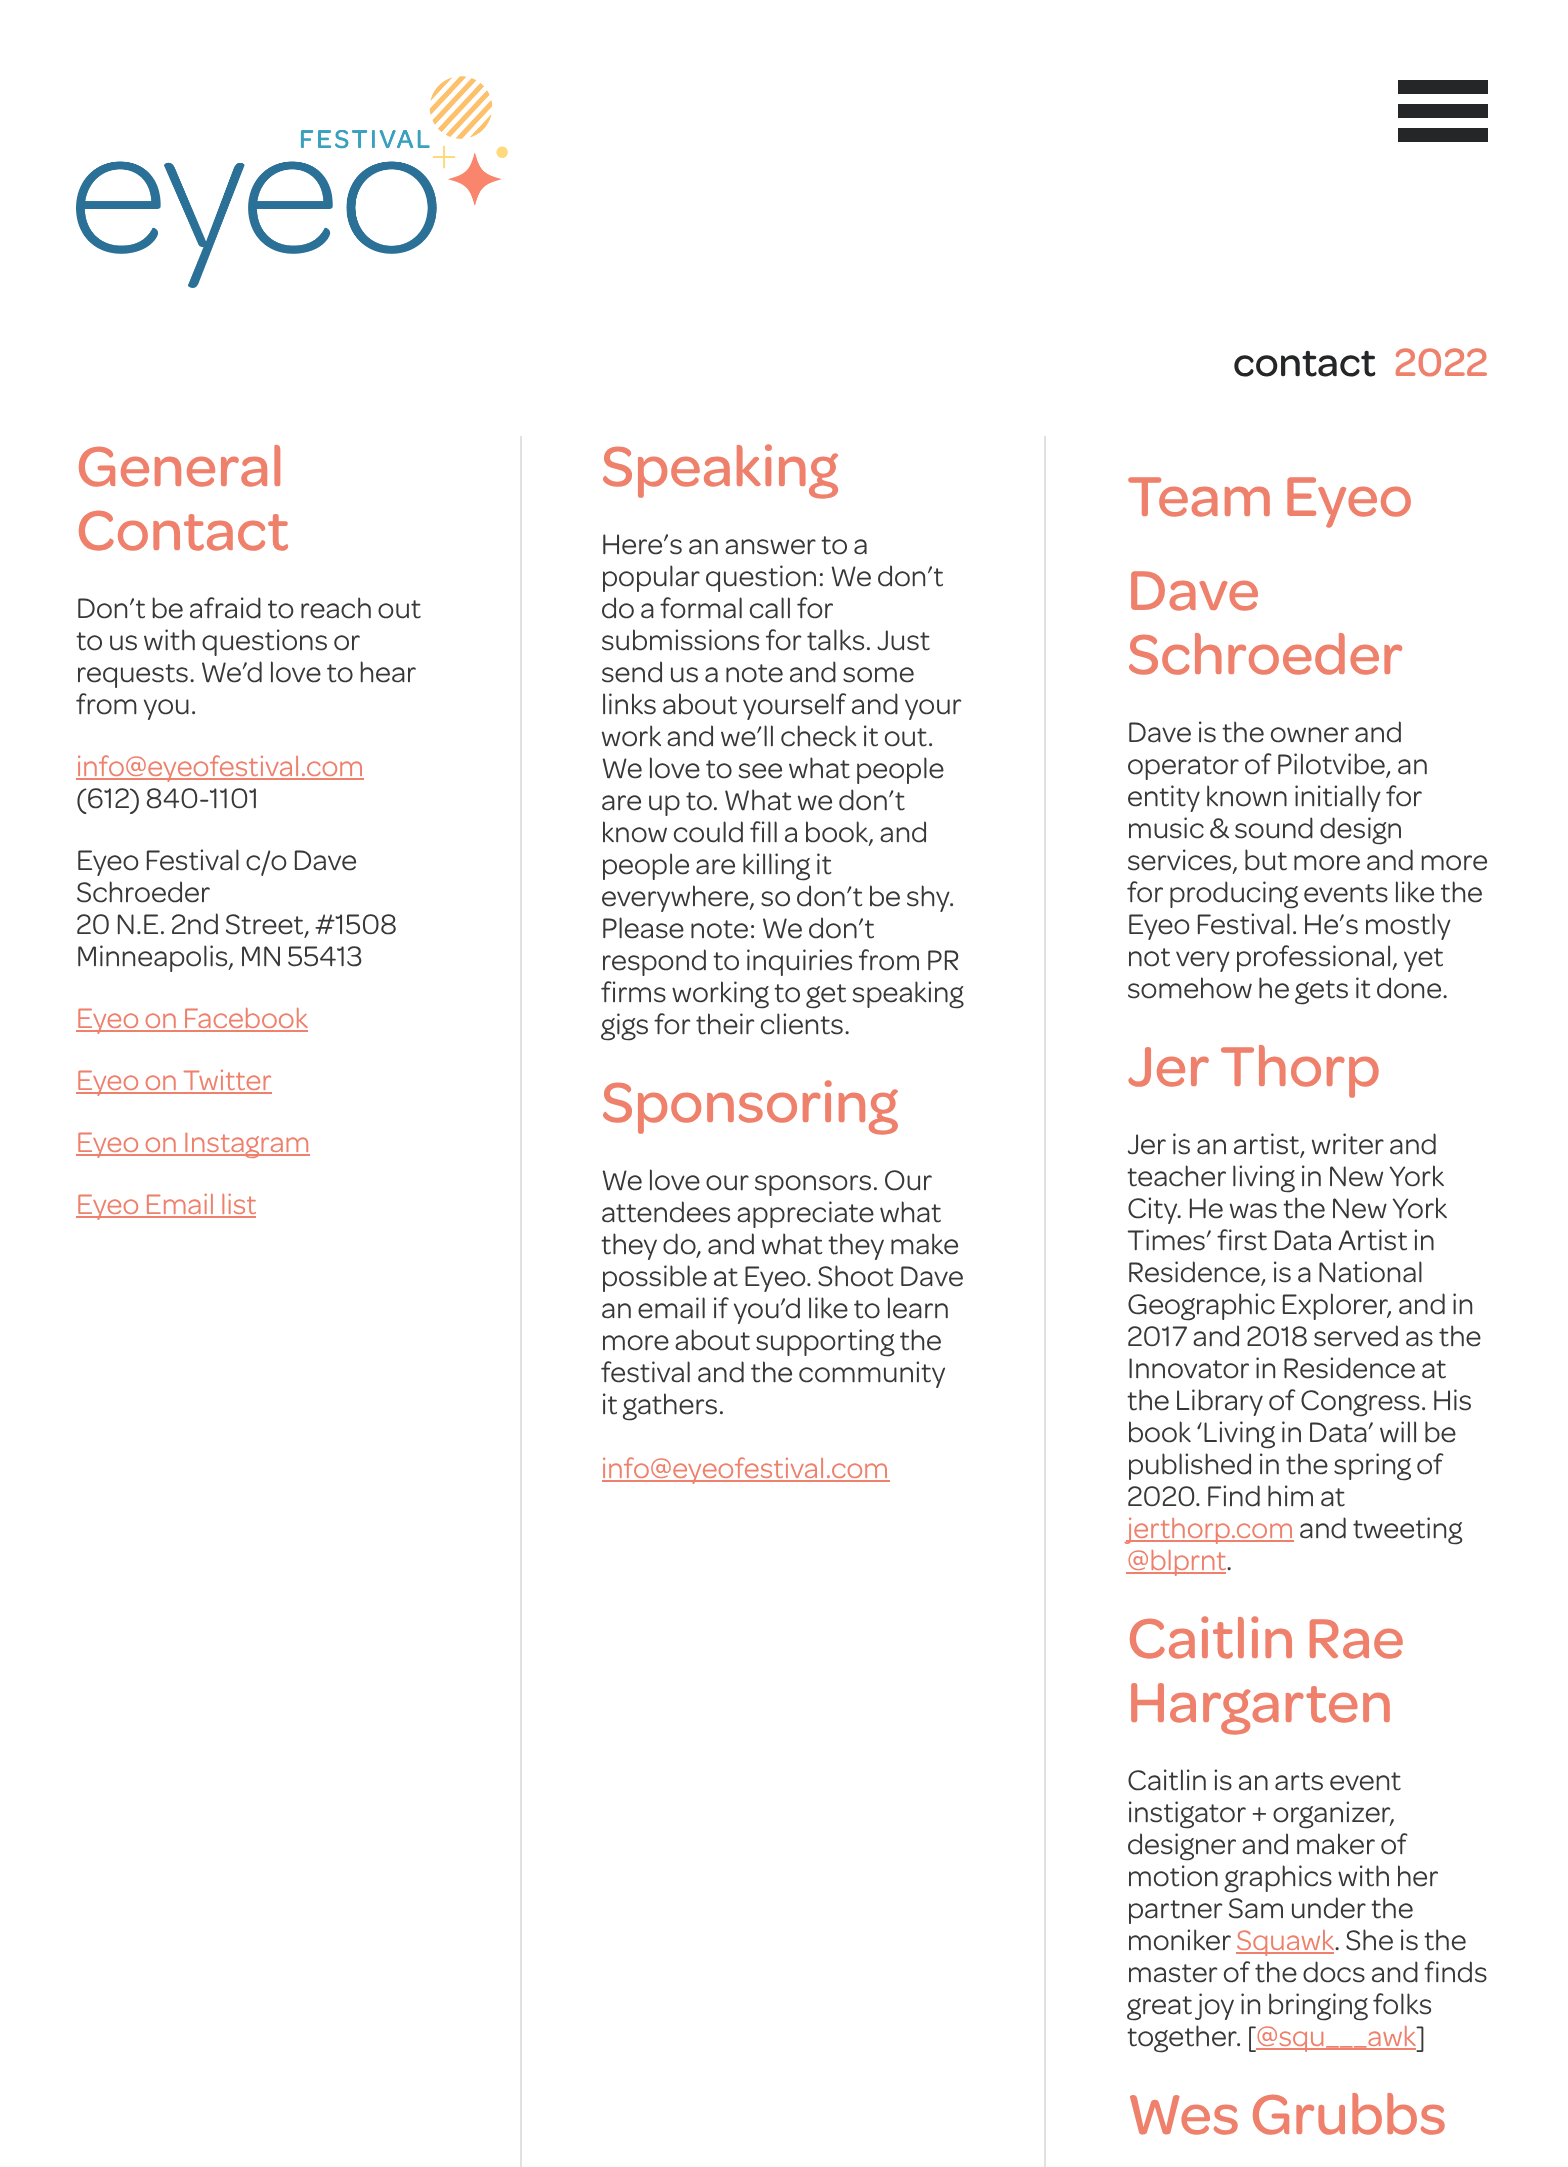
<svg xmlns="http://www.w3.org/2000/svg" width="1568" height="2167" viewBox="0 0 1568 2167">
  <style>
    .t1 { font: 500 42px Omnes; fill: #252628; }
    .t2 { font: 500 42px Omnes; fill: #ee806c; }
    .t3 { font: 500 60px Omnes; fill: #ee806c; }
    .t4 { font: 30px Omnes; fill: #383838; }
    .t5 { font: 30px Omnes; fill: #ee806c; }
  </style>
  <rect width="100%" height="100%" fill="#fff"/>
  <image x="76" y="76" width="432" height="212" href="images/1.png"/>
  <rect x="1398" y="104" width="90" height="14" fill="#252628"/>
  <rect x="1398" y="80" width="90" height="14" fill="#252628"/>
  <rect x="1398" y="128" width="90" height="14" fill="#252628"/>
  <text x="1233" y="376" class="t1">contact</text>
  <text x="1394" y="376" class="t2">2022</text>
  <rect x="520" y="436" width="2" height="1731" fill="#e1e1e1"/>
  <text x="76" y="486" class="t3">General</text>
  <text x="76" y="550" class="t3">Contact</text>
  <text x="76" y="618" class="t4">Don’t be afraid to reach out</text>
  <text x="76" y="650" class="t4">to us with questions or</text>
  <text x="76" y="682" class="t4">requests. We’d love to hear</text>
  <text x="76" y="714" class="t4">from you.</text>
  <rect x="76" y="778" width="288" height="2" fill="#ee806c"/>
  <text x="76" y="776" class="t5">info@eyeofestival.com</text>
  <text x="76" y="808" class="t4">(612) 840-1101</text>
  <text x="76" y="870" class="t4">Eyeo Festival c/o Dave</text>
  <text x="76" y="902" class="t4">Schroeder</text>
  <text x="76" y="934" class="t4">20 N.E. 2nd Street, #1508</text>
  <text x="76" y="966" class="t4">Minneapolis, MN 55413</text>
  <rect x="76" y="1030" width="232" height="2" fill="#ee806c"/>
  <text x="76" y="1028" class="t5">Eyeo on Facebook</text>
  <rect x="76" y="1092" width="196" height="2" fill="#ee806c"/>
  <text x="76" y="1090" class="t5">Eyeo on Twitter</text>
  <rect x="76" y="1154" width="234" height="2" fill="#ee806c"/>
  <text x="76" y="1152" class="t5">Eyeo on Instagram</text>
  <rect x="76" y="1216" width="180" height="2" fill="#ee806c"/>
  <text x="76" y="1214" class="t5">Eyeo Email list</text>
  <rect x="1044" y="436" width="2" height="1731" fill="#e1e1e1"/>
  <text x="601" y="486" class="t3">Speaking</text>
  <text x="601" y="554" class="t4">Here’s an answer to a</text>
  <text x="601" y="586" class="t4">popular question: We don’t</text>
  <text x="601" y="618" class="t4">do a formal call for</text>
  <text x="601" y="650" class="t4">submissions for talks. Just</text>
  <text x="601" y="682" class="t4">send us a note and some</text>
  <text x="601" y="714" class="t4">links about yourself and your</text>
  <text x="601" y="746" class="t4">work and we’ll check it out.</text>
  <text x="601" y="778" class="t4">We love to see what people</text>
  <text x="601" y="810" class="t4">are up to. What we don’t</text>
  <text x="601" y="842" class="t4">know could fill a book, and</text>
  <text x="601" y="874" class="t4">people are killing it</text>
  <text x="601" y="906" class="t4">everywhere, so don’t be shy.</text>
  <text x="601" y="938" class="t4">Please note: We don’t</text>
  <text x="601" y="970" class="t4">respond to inquiries from PR</text>
  <text x="601" y="1002" class="t4">firms working to get speaking</text>
  <text x="601" y="1034" class="t4">gigs for their clients.</text>
  <text x="601" y="1122" class="t3">Sponsoring</text>
  <text x="601" y="1190" class="t4">We love our sponsors. Our</text>
  <text x="601" y="1222" class="t4">attendees appreciate what</text>
  <text x="601" y="1254" class="t4">they do, and what they make</text>
  <text x="601" y="1286" class="t4">possible at Eyeo. Shoot Dave</text>
  <text x="601" y="1318" class="t4">an email if you’d like to learn</text>
  <text x="601" y="1350" class="t4">more about supporting the</text>
  <text x="601" y="1382" class="t4">festival and the community</text>
  <text x="601" y="1414" class="t4">it gathers.</text>
  <rect x="602" y="1480" width="288" height="2" fill="#ee806c"/>
  <text x="601" y="1478" class="t5">info@eyeofestival.com</text>
  <text x="1127" y="516" class="t3">Team Eyeo</text>
  <text x="1127" y="610" class="t3">Dave</text>
  <text x="1127" y="674" class="t3">Schroeder</text>
  <text x="1127" y="742" class="t4">Dave is the owner and</text>
  <text x="1127" y="774" class="t4">operator of Pilotvibe, an</text>
  <text x="1127" y="806" class="t4">entity known initially for</text>
  <text x="1127" y="838" class="t4">music &amp; sound design</text>
  <text x="1127" y="870" class="t4">services, but more and more</text>
  <text x="1127" y="902" class="t4">for producing events like the</text>
  <text x="1127" y="934" class="t4">Eyeo Festival. He’s mostly</text>
  <text x="1127" y="966" class="t4">not very professional, yet</text>
  <text x="1127" y="998" class="t4">somehow he gets it done.</text>
  <text x="1127" y="1086" class="t3">Jer Thorp</text>
  <text x="1127" y="1154" class="t4">Jer is an artist, writer and</text>
  <text x="1127" y="1186" class="t4">teacher living in New York</text>
  <text x="1127" y="1218" class="t4">City. He was the New York</text>
  <text x="1127" y="1250" class="t4">Times’ first Data Artist in</text>
  <text x="1127" y="1282" class="t4">Residence, is a National</text>
  <text x="1127" y="1314" class="t4">Geographic Explorer, and in</text>
  <text x="1127" y="1346" class="t4">2017 and 2018 served as the</text>
  <text x="1127" y="1378" class="t4">Innovator in Residence at</text>
  <text x="1127" y="1410" class="t4">the Library of Congress. His</text>
  <text x="1127" y="1442" class="t4">book ‘Living in Data’ will be</text>
  <text x="1127" y="1474" class="t4">published in the spring of</text>
  <text x="1127" y="1506" class="t4">2020. Find him at</text>
  <rect x="1126" y="1540" width="168" height="2" fill="#ee806c"/>
  <text x="1127" y="1538" class="t5">jerthorp.com</text>
  <text x="1299" y="1538" class="t4">and tweeting</text>
  <rect x="1126" y="1572" width="100" height="2" fill="#ee806c"/>
  <text x="1127" y="1570" class="t5">@blprnt</text>
  <text x="1226" y="1570" class="t4">.</text>
  <text x="1127" y="1658" class="t3">Caitlin Rae</text>
  <text x="1127" y="1722" class="t3">Hargarten</text>
  <text x="1127" y="1790" class="t4">Caitlin is an arts event</text>
  <text x="1127" y="1822" class="t4">instigator + organizer,</text>
  <text x="1127" y="1854" class="t4">designer and maker of</text>
  <text x="1127" y="1886" class="t4">motion graphics with her</text>
  <text x="1127" y="1918" class="t4">partner Sam under the</text>
  <text x="1127" y="1950" class="t4">moniker</text>
  <rect x="1236" y="1952" width="98" height="2" fill="#ee806c"/>
  <text x="1236" y="1950" class="t5">Squawk</text>
  <text x="1334" y="1950" class="t4">. She is the</text>
  <text x="1127" y="1982" class="t4">master of the docs and finds</text>
  <text x="1127" y="2014" class="t4">great joy in bringing folks</text>
  <text x="1127" y="2046" class="t4">together. [</text>
  <rect x="1256" y="2048" width="160" height="2" fill="#ee806c"/>
  <text x="1256" y="2046" class="t5">@squ___awk</text>
  <text x="1416" y="2046" class="t4">]</text>
  <text x="1127" y="2134" class="t3">Wes Grubbs</text>
</svg>
